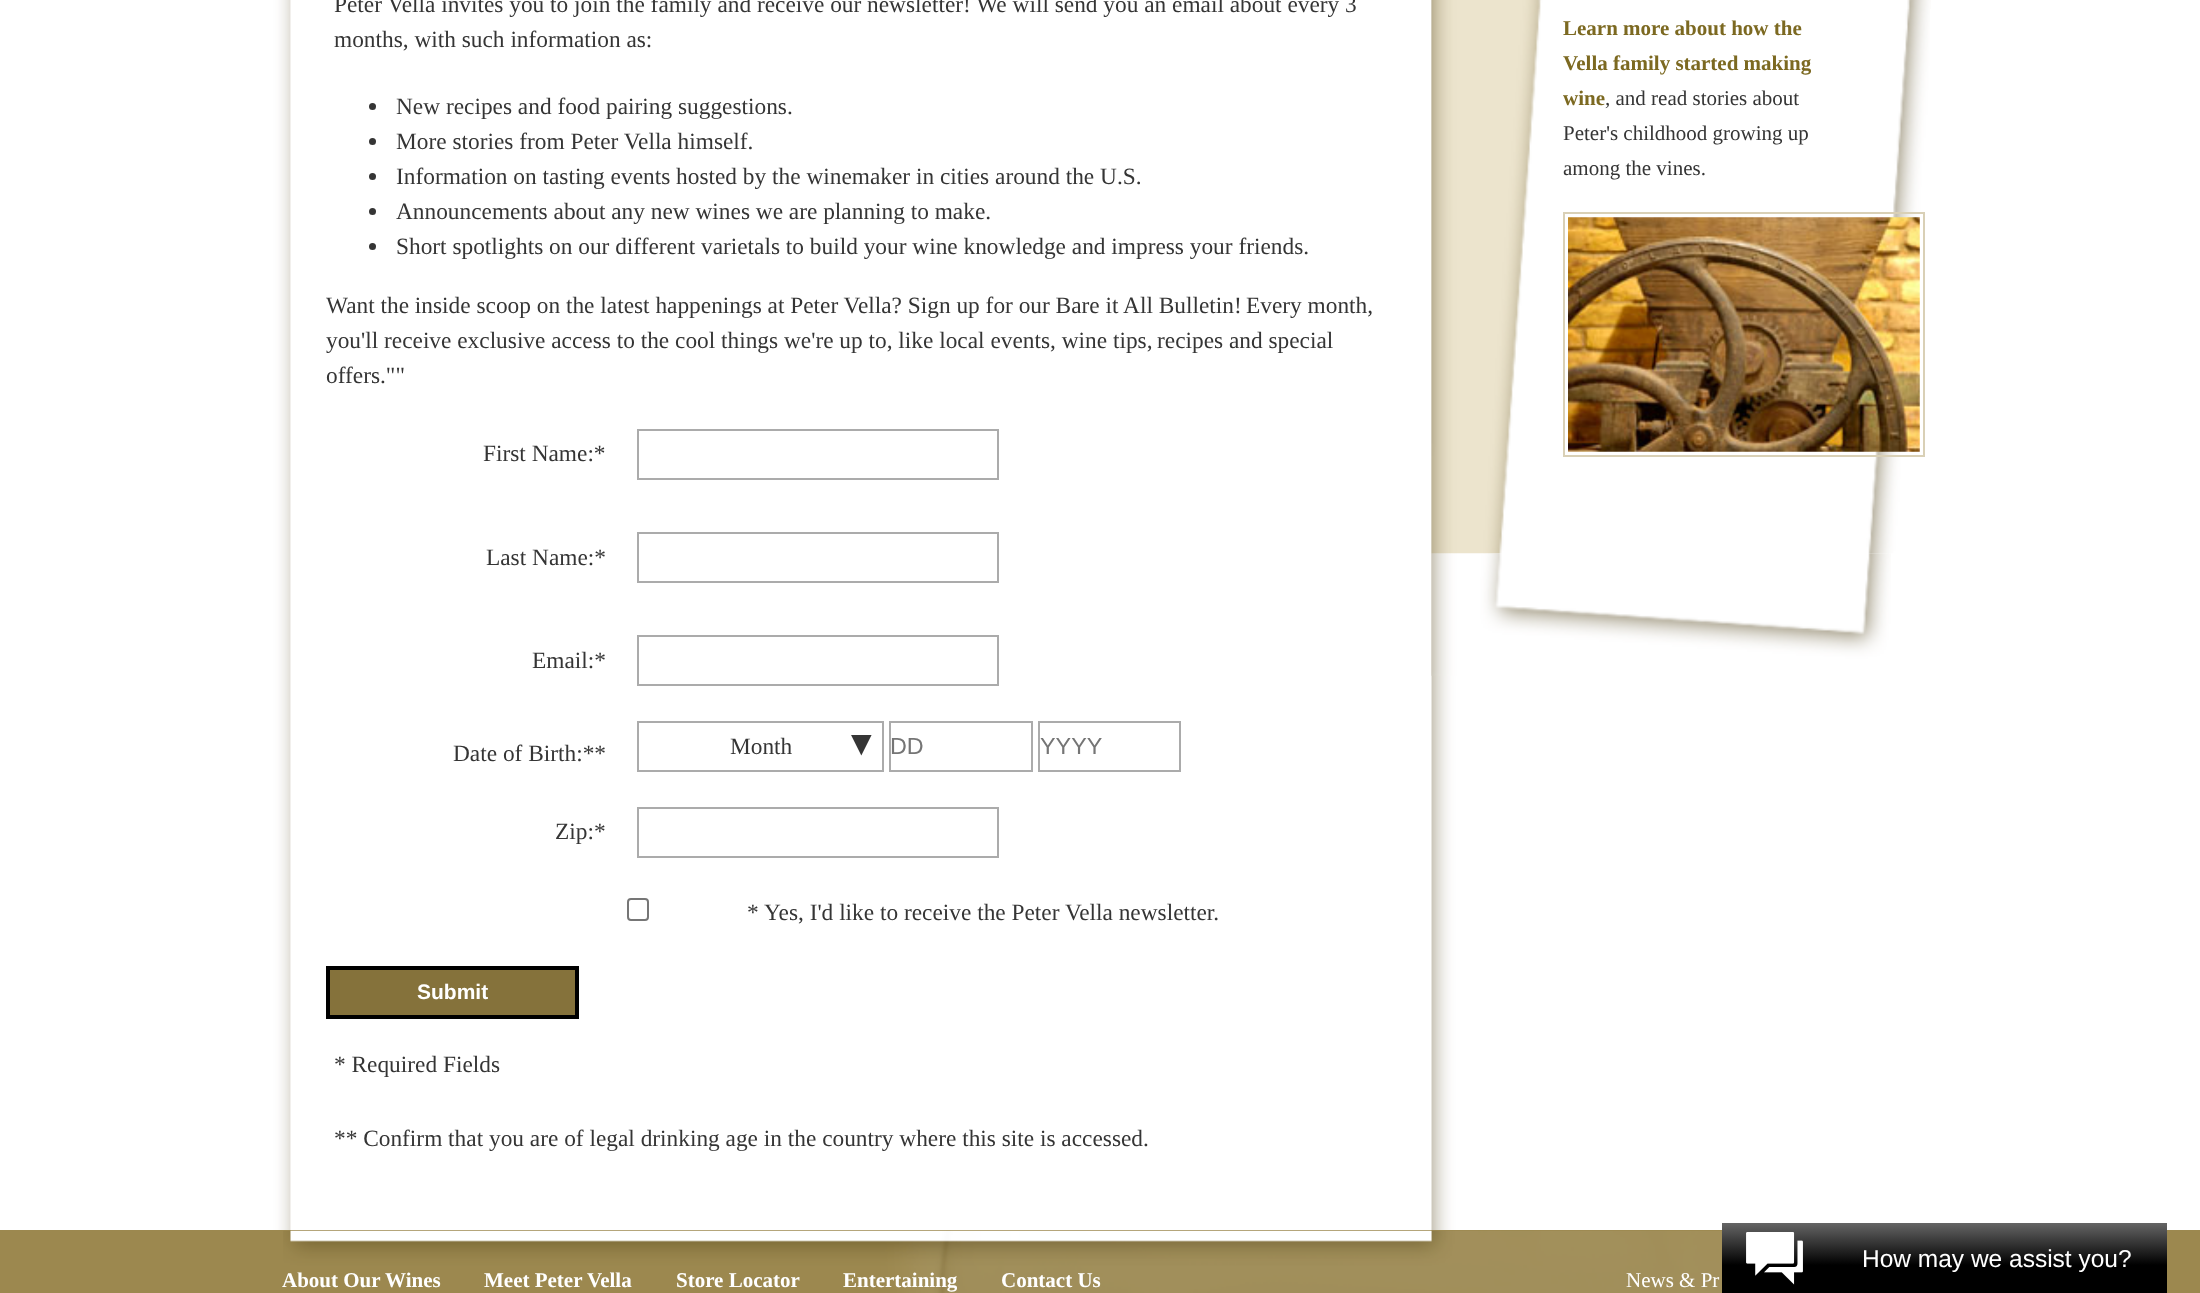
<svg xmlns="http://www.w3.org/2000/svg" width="2200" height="1293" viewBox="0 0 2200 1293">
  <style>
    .t1 { font: 23.35px Liberation Serif; fill: #353535; }
    .t2 { font: 35px Liberation Serif; fill: #353535; }
    .t3 { font: 23.35px Liberation Sans; fill: #757575; }
    .t4 { font: bold 21px Liberation Sans; fill: #fff; }
    .t5 { font: bold 21px Liberation Serif; fill: #7c6921; }
    .t6 { font: 21px Liberation Serif; fill: #353535; }
    .t7 { font: 24.5px Liberation Sans; fill: #fff; }
    .t8 { font: bold 21px Liberation Serif; fill: #fff; }
    .t9 { font: 21px Liberation Serif; fill: #fff; }
  </style>
  <defs>
    <linearGradient id="g1" gradientUnits="userSpaceOnUse" x1="1944" y1="1223" x2="1944" y2="1293"><stop offset="0" stop-color="#656565"/><stop offset="0.6" stop-color="#000"/></linearGradient>
  </defs>
  <rect width="100%" height="100%" fill="#fff"/>
  <image x="238" y="0" width="1726" height="1230" href="images/1.png"/>
  <text x="334" y="12" class="t1">Peter Vella invites you to join the family and receive our newsletter! We will send you an email about every 3</text>
  <text x="334" y="47" class="t1">months, with such information as:</text>
  <circle cx="372.5" cy="106.5" r="3.5" fill="#353535"/>
  <text x="396" y="114" class="t1">New recipes and food pairing suggestions.</text>
  <circle cx="372.5" cy="141.5" r="3.5" fill="#353535"/>
  <text x="396" y="149" class="t1">More stories from Peter Vella himself.</text>
  <circle cx="372.5" cy="176.5" r="3.5" fill="#353535"/>
  <text x="396" y="184" class="t1">Information on tasting events hosted by the winemaker in cities around the U.S.</text>
  <circle cx="372.5" cy="211.5" r="3.5" fill="#353535"/>
  <text x="396" y="219" class="t1">Announcements about any new wines we are planning to make.</text>
  <circle cx="372.5" cy="246.5" r="3.5" fill="#353535"/>
  <text x="396" y="254" class="t1">Short spotlights on our different varietals to build your wine knowledge and impress your friends.</text>
  <text x="326" y="313" class="t1">Want the inside scoop on the latest happenings at Peter Vella? Sign up for our Bare it All Bulletin!</text>
  <text x="1246" y="313" class="t1">Every month,</text>
  <text x="326" y="348" class="t1">you'll receive exclusive access to the cool things we're up to, like local events, wine tips,</text>
  <text x="1157" y="348" class="t1">recipes and special</text>
  <text x="326" y="383" class="t1">offers.""</text>
  <text x="483" y="461" class="t1">First Name:*</text>
  <rect x="638" y="430" width="360" height="49" fill="none" stroke="#ababab" stroke-width="2"/>
  <text x="486" y="565" class="t1">Last Name:*</text>
  <rect x="638" y="533" width="360" height="49" fill="none" stroke="#ababab" stroke-width="2"/>
  <text x="532" y="668" class="t1">Email:*</text>
  <rect x="638" y="636" width="360" height="49" fill="none" stroke="#ababab" stroke-width="2"/>
  <text x="453" y="761" class="t1">Date of Birth:**</text>
  <rect x="638" y="722" width="245" height="49" fill="none" stroke="#ababab" stroke-width="2"/>
  <text x="730" y="754" class="t1">Month</text>
  <text x="844" y="755" class="t2">▼</text>
  <rect x="890" y="722" width="142" height="49" fill="none" stroke="#ababab" stroke-width="2"/>
  <text x="890" y="754" class="t3">DD</text>
  <rect x="1039" y="722" width="141" height="49" fill="none" stroke="#ababab" stroke-width="2"/>
  <text x="1040" y="754" class="t3">YYYY</text>
  <text x="555" y="839" class="t1">Zip:*</text>
  <rect x="638" y="808" width="360" height="49" fill="none" stroke="#ababab" stroke-width="2"/>
  <rect x="628" y="899" width="20" height="21" rx="3" fill="none" stroke="#767676" stroke-width="2"/>
  <text x="747" y="920" class="t1">*</text>
  <text x="764" y="920" class="t1">Yes, I'd like to receive the Peter Vella newsletter.</text>
  <rect x="328" y="968" width="249" height="49" fill="#85723b" stroke="#000" stroke-width="4"/>
  <text x="417" y="999" class="t4">Submit</text>
  <text x="334" y="1072" class="t1">* Required Fields</text>
  <text x="334" y="1146" class="t1">** Confirm that you are of legal drinking age in the country where this site is accessed.</text>
  <image x="1431" y="0" width="500" height="9" href="images/2.png"/>
  <image x="1431" y="553" width="460" height="123" href="images/3.png"/>
  <image x="1431" y="9" width="499" height="545" href="images/4.png"/>
  <text x="1563" y="35" class="t5">Learn more about how the</text>
  <text x="1563" y="70" class="t5">Vella family started making</text>
  <text x="1563" y="105" class="t5">wine</text>
  <text x="1605" y="105" class="t6">, and read stories about</text>
  <text x="1563" y="140" class="t6">Peter's childhood growing up</text>
  <text x="1563" y="175" class="t6">among the vines.</text>
  <rect x="1564" y="213" width="360" height="243" fill="none" stroke="#d9d0b6" stroke-width="2"/>
  <image x="1568" y="217" width="352" height="235" href="images/5.png"/>
  <rect x="0" y="1230" width="2200" height="63" fill="#9c884f"/>
  <rect x="1722" y="1223" width="445" height="70" fill="url(#g1)"/>
  <image x="1746" y="1232" width="57" height="53" href="images/6.png"/>
  <text x="1862" y="1267" class="t7">How may we assist you?</text>
  <image x="283" y="1230" width="1439" height="63" href="images/7.png"/>
  <text x="282" y="1287" class="t8">About Our Wines</text>
  <text x="484" y="1287" class="t8">Meet Peter Vella</text>
  <text x="676" y="1287" class="t8">Store Locator</text>
  <text x="843" y="1287" class="t8">Entertaining</text>
  <text x="1001" y="1287" class="t8">Contact Us</text>
  <text x="1626" y="1287" class="t9">News &amp; Pr</text>
</svg>
